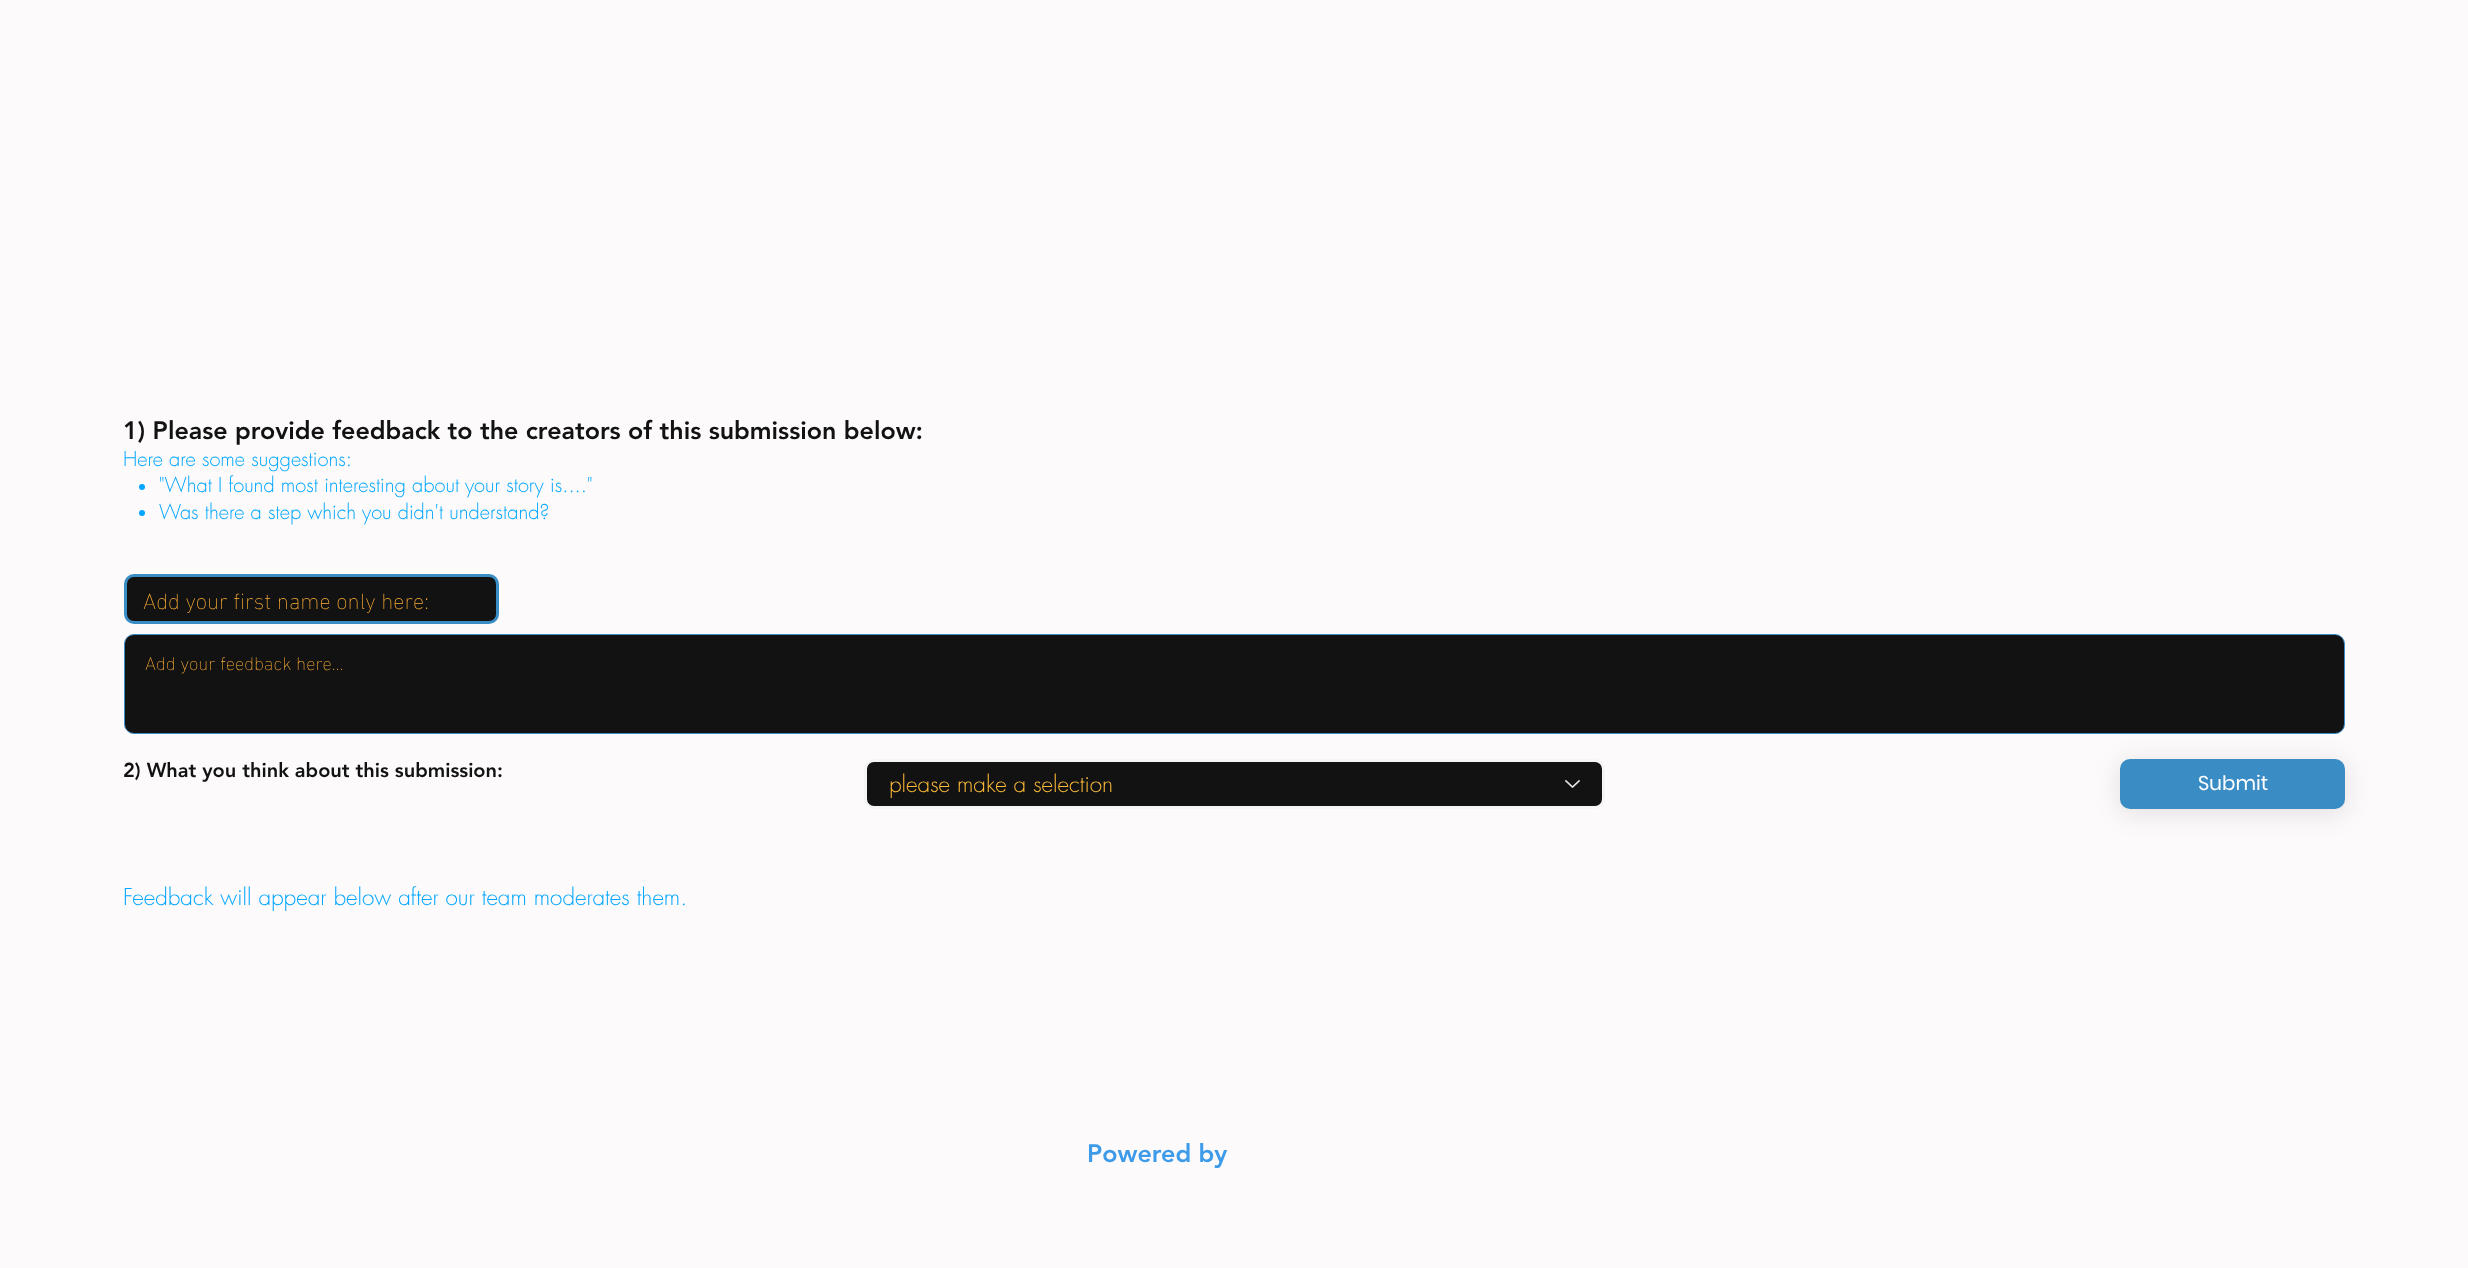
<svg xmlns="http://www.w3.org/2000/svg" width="2468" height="1268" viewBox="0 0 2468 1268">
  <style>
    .t1 { font: 900 25px 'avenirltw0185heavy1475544'; fill: #121212; }
    .t2 { font: 300 20px futura; fill: #00a6ff; }
    .t3 { font: 200 22.5px 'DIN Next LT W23'; fill: #fdae33; }
    .t4 { font: 200 18.75px 'DIN Next LT W23'; fill: #fdae33; }
    .t5 { font: 900 20px 'avenirltw0185heavy1475544'; fill: #121212; }
    .t6 { font: 300 22.5px futura; fill: #ffbb38; }
    .t7 { font: 20px Poppins; fill: #fff; }
    .t8 { font: 300 22.5px futura; fill: #00a6ff; }
    .t9 { font: 900 25px 'avenirltw0185heavy1475544'; fill: #3d9be9; }
  </style>
  <rect width="100%" height="100%" fill="#fcfafa"/>
  <text x="123" y="439" class="t1">1) Please provide feedback to the creators of this submission below:</text>
  <text x="123" y="466" class="t2">Here are some suggestions:</text>
  <circle cx="142" cy="487" r="3" fill="#00a6ff"/>
  <text x="159" y="492" class="t2">"What I found most interesting about your story is...."</text>
  <circle cx="142" cy="513" r="3" fill="#00a6ff"/>
  <text x="159" y="519" class="t2">Was there a step which you didn't understand?</text>
  <rect x="125.5" y="575.5" width="372" height="47" rx="8.5" fill="#121212" stroke="#3a8cc5" stroke-width="3"/>
  <text x="143" y="609" class="t3">Add your first name only here:</text>
  <rect x="2119" y="761" width="227" height="53" rx="11" fill="#0000001a" filter="blur(12.5px)"/>
  <rect x="124.5" y="634.5" width="2220" height="99" rx="9.5" fill="#121212" stroke="#3a8cc5"/>
  <text x="145" y="670" class="t4">Add your feedback here...</text>
  <text x="123" y="777" class="t5">2) What you think about this submission:</text>
  <rect x="865.5" y="760.5" width="738" height="47" rx="8.5" fill="#121212" stroke="#f5f5f5" stroke-width="3"/>
  <text x="889" y="792" class="t6">please make a selection</text>
  <image x="1565" y="780" width="15" height="8" href="images/1.png"/>
  <rect x="2120" y="759" width="225" height="50" rx="10" fill="#3a8cc5"/>
  <text x="2198" y="790" class="t7">Submit</text>
  <text x="123" y="905" class="t8">Feedback will appear below after our team moderates them.</text>
  <text x="1087" y="1162" class="t9">Powered by</text>
</svg>
